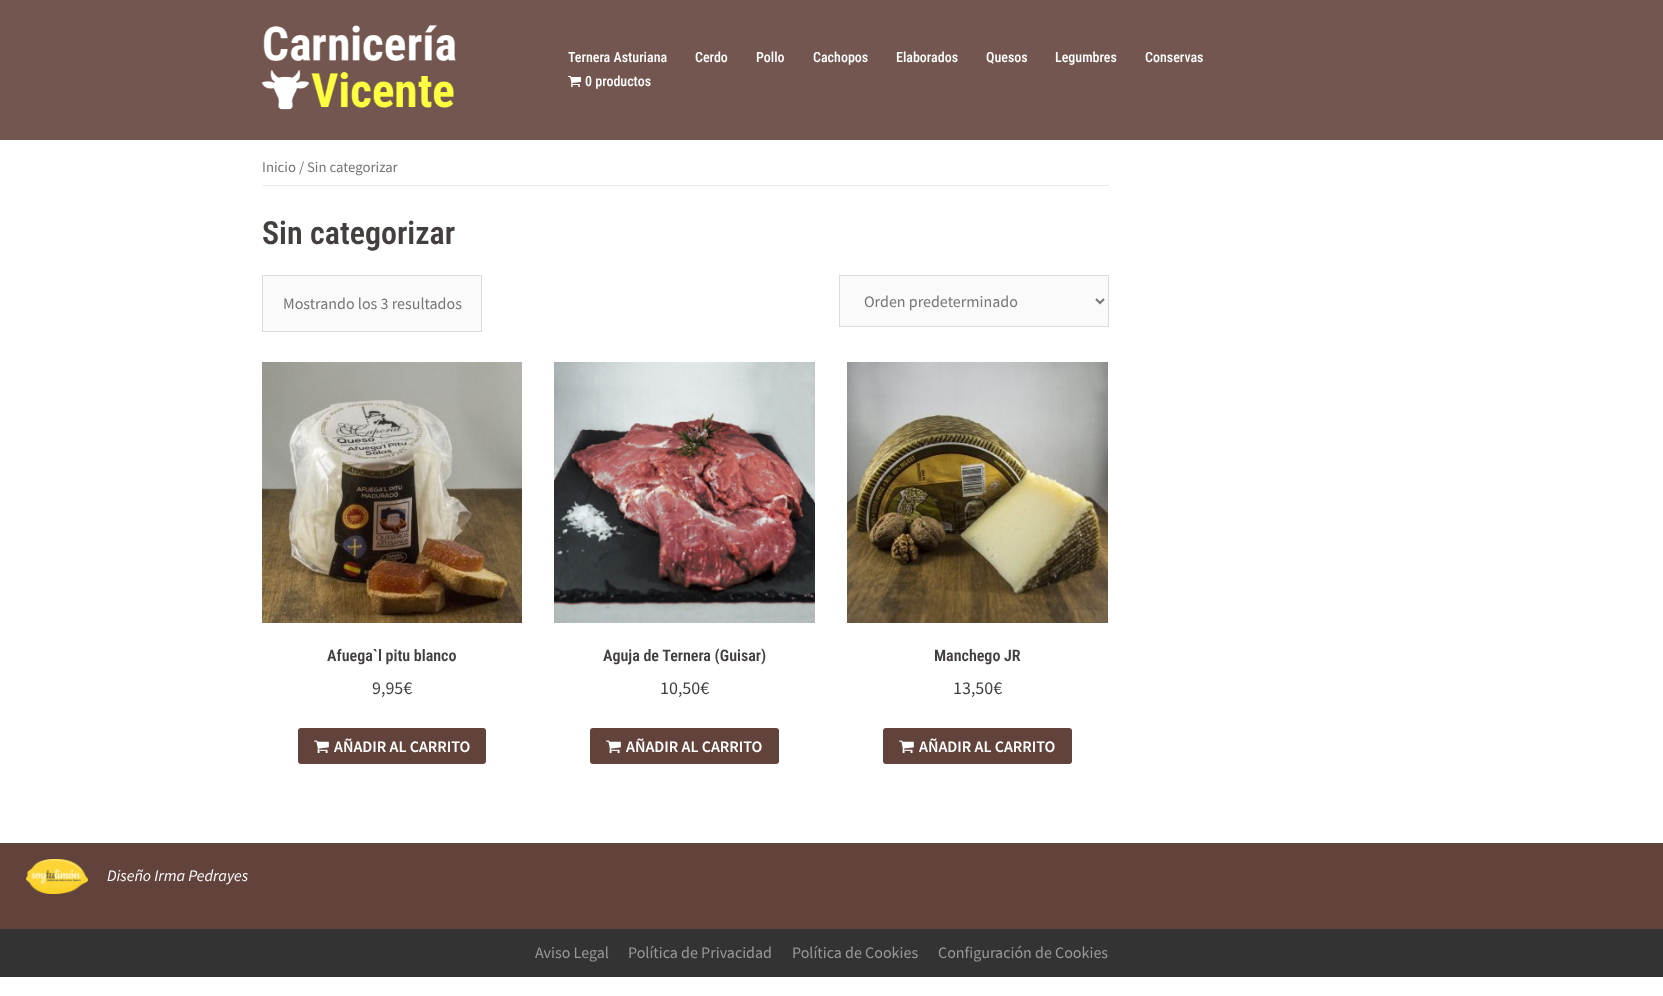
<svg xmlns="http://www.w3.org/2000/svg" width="1663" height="996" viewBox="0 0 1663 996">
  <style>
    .t1 { font: 500 14px Roboto Condensed; fill: #fff; }
    .t2 { font: 14.75px Source Sans Pro; fill: #767676; }
    .t3 { font: 600 32px Roboto Condensed; fill: #443f3f; }
    .t4 { font: 16px Source Sans Pro; fill: #767676; }
    .t5 { font: 600 16px Roboto Condensed; fill: #443f3f; }
    .t6 { font: 18px Source Sans Pro; fill: #443f3f; }
    .t7 { font: 600 16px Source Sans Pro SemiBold; fill: #fff; }
    .t8 { font: italic 16px Source Sans Pro; fill: #fff; }
    .t9 { font: 16px Source Sans Pro; fill: #999; }
  </style>
  <rect width="100%" height="100%" fill="#fff"/>
  <rect x="0" y="0" width="1663" height="140" fill="#72564f"/>
  <image x="261" y="25" width="195" height="85" href="images/1.png"/>
  <text x="568" y="62" class="t1">Ternera Asturiana</text>
  <text x="695" y="62" class="t1">Cerdo</text>
  <text x="756" y="62" class="t1">Pollo</text>
  <text x="813" y="62" class="t1">Cachopos</text>
  <text x="896" y="62" class="t1">Elaborados</text>
  <text x="986" y="62" class="t1">Quesos</text>
  <text x="1055" y="62" class="t1">Legumbres</text>
  <text x="1145" y="62" class="t1">Conservas</text>
  <image x="568" y="76" width="13" height="11" href="images/2.png"/>
  <text x="585" y="86" class="t1">0 productos</text>
  <rect x="262" y="185" width="847" height="1" fill="#ebe9eb"/>
  <text x="262" y="172" class="t2">Inicio / Sin categorizar</text>
  <text x="262" y="244" class="t3">Sin categorizar</text>
  <rect x="262.5" y="275.5" width="219" height="56" fill="#fafafa" stroke="#dbdbdb"/>
  <text x="283" y="309" class="t4">Mostrando los 3 resultados</text>
  <rect x="839.5" y="275.5" width="269" height="51" fill="#fafafa" stroke="#dbdbdb"/>
  <path d="M1096 299L1100 303L1104 299" fill="none" stroke="#767676" stroke-width="2"/>
  <text x="864" y="307" class="t4">Orden predeterminado</text>
  <image x="262" y="362" width="260" height="261" href="images/3.png"/>
  <text x="327" y="661" class="t5">Afuega`l pitu blanco</text>
  <text x="372" y="694" class="t6">9,95€</text>
  <rect x="298" y="728" width="188" height="36" rx="3" fill="#62433b"/>
  <image x="314" y="740" width="15" height="14" href="images/4.png"/>
  <text x="334" y="752" class="t7">AÑADIR AL CARRITO</text>
  <image x="554" y="362" width="261" height="261" href="images/5.png"/>
  <text x="603" y="661" class="t5">Aguja de Ternera (Guisar)</text>
  <text x="660" y="694" class="t6">10,50€</text>
  <rect x="590" y="728" width="189" height="36" rx="3" fill="#62433b"/>
  <image x="606" y="740" width="15" height="14" href="images/4.png"/>
  <text x="626" y="752" class="t7">AÑADIR AL CARRITO</text>
  <image x="847" y="362" width="261" height="261" href="images/6.png"/>
  <text x="934" y="661" class="t5">Manchego JR</text>
  <text x="953" y="694" class="t6">13,50€</text>
  <rect x="883" y="728" width="189" height="36" rx="3" fill="#62433b"/>
  <image x="899" y="740" width="15" height="14" href="images/4.png"/>
  <text x="919" y="752" class="t7">AÑADIR AL CARRITO</text>
  <rect x="0" y="843" width="1663" height="86" fill="#62433b"/>
  <image x="26" y="859" width="62" height="35" href="images/7.png"/>
  <text x="107" y="881" class="t8">Diseño Irma Pedrayes</text>
  <rect x="0" y="929" width="1663" height="48" fill="#333"/>
  <text x="535" y="958" class="t9">Aviso Legal</text>
  <text x="628" y="958" class="t9">Política de Privacidad</text>
  <text x="792" y="958" class="t9">Política de Cookies</text>
  <text x="938" y="958" class="t9">Configuración de Cookies</text>
</svg>
